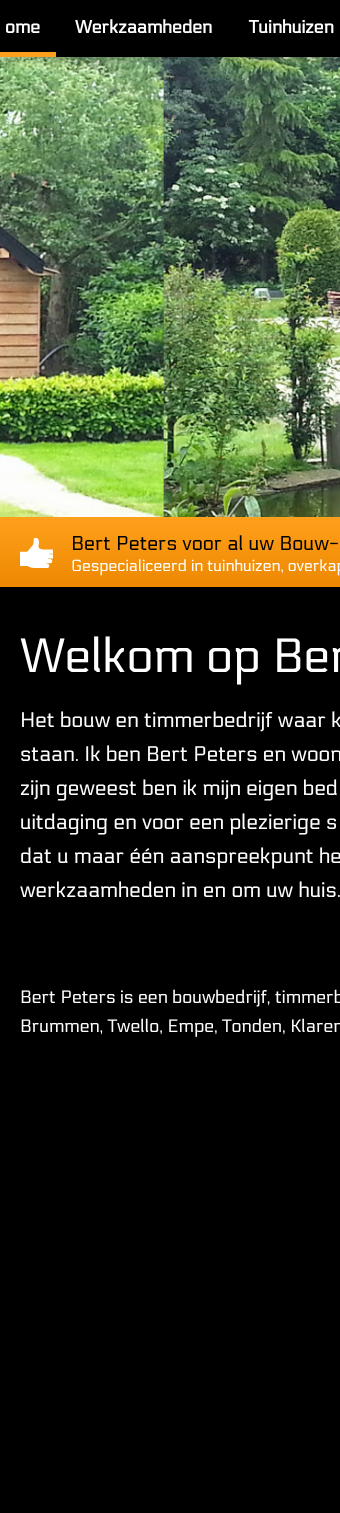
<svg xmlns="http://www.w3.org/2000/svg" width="340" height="1513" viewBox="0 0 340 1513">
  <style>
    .t1 { font: bold 18px Electrolize; fill: #fff; }
    .t2 { font: 20px Electrolize; fill: #000; }
    .t3 { font: 16px Electrolize; fill: #fff; }
    .t4 { font: 48px Electrolize; fill: #fff; }
    .t5 { font: 21px Electrolize; fill: #fff; }
    .t6 { font: 18px Electrolize; fill: #fff; }
  </style>
  <defs>
    <clipPath id="clip1"><rect x="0" y="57" width="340" height="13"/></clipPath>
    <linearGradient id="g1" gradientUnits="userSpaceOnUse" x1="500" y1="517" x2="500" y2="587"><stop offset="0" stop-color="#ffa01c"/><stop offset="1" stop-color="#ed8800"/></linearGradient>
  </defs>
  <rect width="100%" height="100%" fill="#000"/>
  <image x="0" y="57" width="340" height="460" href="images/1.png"/>
  <g clip-path="url(#clip1)">
    <rect x="0" y="0" width="340" height="57" fill="#00000059" filter="blur(8px)"/>
  </g>
  <rect x="0" y="52" width="56" height="5" fill="#ffa01c"/>
  <text x="5" y="33" class="t1">ome</text>
  <text x="75" y="33" class="t1">Werkzaamheden</text>
  <text x="249" y="33" class="t1">Tuinhuizen</text>
  <rect x="0" y="517" width="340" height="70" fill="url(#g1)"/>
  <image x="20" y="538" width="33" height="30" href="images/2.png"/>
  <text x="71" y="550" class="t2">Bert Peters voor al uw Bouw-</text>
  <text x="71" y="571" class="t3">Gespecialiceerd in tuinhuizen, overkap</text>
  <text x="20" y="672" class="t4">Welkom op Ber</text>
  <text x="20" y="727" class="t5">Het bouw en timmerbedrijf waar k</text>
  <text x="20" y="761" class="t5">staan. Ik ben Bert Peters en woon</text>
  <text x="20" y="795" class="t5">zijn geweest ben ik mijn eigen bed</text>
  <text x="20" y="829" class="t5">uitdaging en voor een plezierige s</text>
  <text x="20" y="863" class="t5">dat u maar één aanspreekpunt he</text>
  <text x="20" y="897" class="t5">werkzaamheden in en om uw huis.</text>
  <text x="20" y="1003" class="t6">Bert Peters is een bouwbedrijf, timmerb</text>
  <text x="20" y="1032" class="t6">Brummen, Twello, Empe, Tonden, Klaren</text>
</svg>
